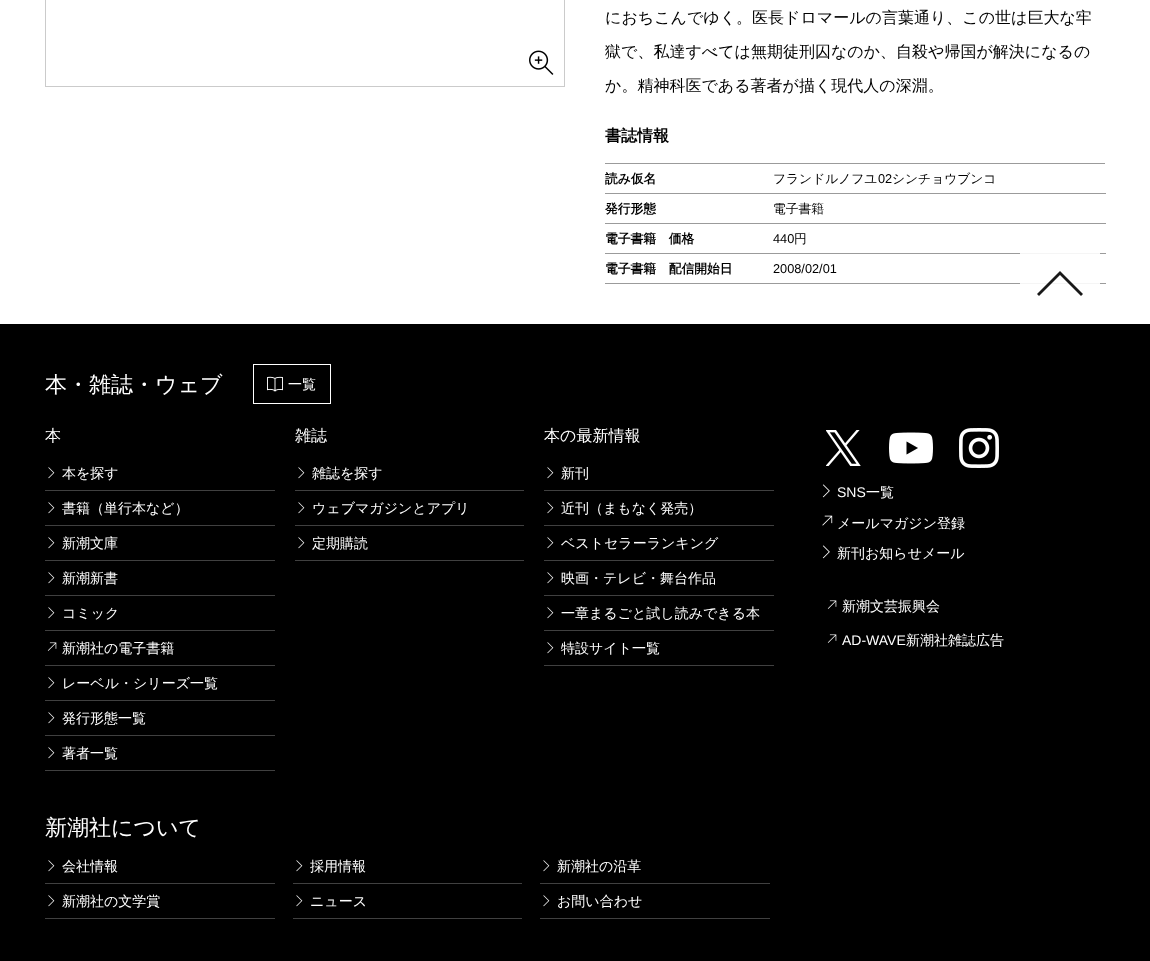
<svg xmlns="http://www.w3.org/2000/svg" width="1150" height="961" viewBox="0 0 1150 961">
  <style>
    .t1 { font: 500 16px WenQuanYi Zen Hei; fill: #000; }
    .t2 { font: bold 16px WenQuanYi Zen Hei; fill: #000; }
    .t3 { font: bold 12.75px WenQuanYi Zen Hei; fill: #000; }
    .t4 { font: 500 12.75px WenQuanYi Zen Hei; fill: #000; }
    .t5 { font: 12.75px Liberation Sans; fill: #000; }
    .t6 { font: 500 22px WenQuanYi Zen Hei; fill: #fff; }
    .t7 { font: 500 14px WenQuanYi Zen Hei; fill: #fff; }
    .t8 { font: 500 16px WenQuanYi Zen Hei; fill: #fff; }
    .t9 { font: 14px Liberation Sans; fill: #fff; }
  </style>
  <rect width="100%" height="100%" fill="#fff"/>
  <rect x="45.5" y="-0.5" width="519" height="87" fill="none" stroke="#cbcbcb"/>
  <image x="529" y="50" width="25" height="25" href="images/1.png"/>
  <text x="605" y="23" class="t1">におちこんでゆく。医長ドロマールの言葉通り、この世は巨大な牢</text>
  <text x="605" y="57" class="t1">獄で、私達すべては無期徒刑囚なのか、自殺や帰国が解決になるの</text>
  <text x="605" y="91" class="t1">か。精神科医である著者が描く現代人の深淵。</text>
  <text x="605" y="141" class="t2">書誌情報</text>
  <rect x="605" y="163" width="500" height="1" fill="#9b9b9b"/>
  <text x="605" y="183" class="t3">読み仮名</text>
  <rect x="605" y="193" width="501" height="1" fill="#9b9b9b"/>
  <text x="773" y="183" class="t4">フランドルノフユ</text>
  <text x="878" y="183" class="t5">02</text>
  <text x="892" y="183" class="t4">シンチョウブンコ</text>
  <text x="605" y="213" class="t3">発行形態</text>
  <rect x="605" y="223" width="501" height="1" fill="#9b9b9b"/>
  <text x="773" y="213" class="t4">電子書籍</text>
  <text x="605" y="243" class="t3">電子書籍　価格</text>
  <rect x="605" y="253" width="501" height="1" fill="#9b9b9b"/>
  <rect x="1020" y="253" width="80" height="1" fill="#f5f5f5"/>
  <text x="773" y="243" class="t5">440</text>
  <text x="794" y="243" class="t4">円</text>
  <text x="605" y="273" class="t3">電子書籍　配信開始日</text>
  <rect x="605" y="283" width="501" height="1" fill="#9b9b9b"/>
  <rect x="1020" y="283" width="80" height="1" fill="#f5f5f5"/>
  <text x="773" y="273" class="t5">2008/02/01</text>
  <rect x="0" y="324" width="1150" height="637" fill="#000"/>
  <path d="M1083 294L1081 296L1060 275L1039 296L1037 294L1060 271Z" fill="#000000e6"/>
  <text x="45" y="392" class="t6">本・雑誌・ウェブ</text>
  <rect x="253.5" y="364.5" width="77" height="39" fill="none" stroke="#fff"/>
  <image x="267" y="376" width="16" height="16" href="images/2.png"/>
  <text x="288" y="389" class="t7">一覧</text>
  <text x="45" y="441" class="t8">本</text>
  <rect x="45" y="490" width="230" height="1" fill="#404040"/>
  <image x="48" y="467" width="7" height="12" href="images/3.png"/>
  <text x="62" y="478" class="t7">本を探す</text>
  <rect x="45" y="525" width="230" height="1" fill="#404040"/>
  <image x="48" y="502" width="7" height="12" href="images/3.png"/>
  <text x="62" y="513" class="t7">書籍（単行本など）</text>
  <rect x="45" y="560" width="230" height="1" fill="#404040"/>
  <image x="48" y="537" width="7" height="12" href="images/3.png"/>
  <text x="62" y="548" class="t7">新潮文庫</text>
  <rect x="45" y="595" width="230" height="1" fill="#404040"/>
  <image x="48" y="572" width="7" height="12" href="images/3.png"/>
  <text x="62" y="583" class="t7">新潮新書</text>
  <rect x="45" y="630" width="230" height="1" fill="#404040"/>
  <image x="48" y="607" width="7" height="12" href="images/3.png"/>
  <text x="62" y="618" class="t7">コミック</text>
  <rect x="45" y="665" width="230" height="1" fill="#404040"/>
  <image x="47" y="642" width="10" height="9" href="images/4.png"/>
  <text x="62" y="653" class="t7">新潮社の電子書籍</text>
  <rect x="45" y="700" width="230" height="1" fill="#404040"/>
  <image x="48" y="677" width="7" height="12" href="images/3.png"/>
  <text x="62" y="688" class="t7">レーベル・シリーズ一覧</text>
  <rect x="45" y="735" width="230" height="1" fill="#404040"/>
  <image x="48" y="712" width="7" height="12" href="images/3.png"/>
  <text x="62" y="723" class="t7">発行形態一覧</text>
  <rect x="45" y="770" width="230" height="1" fill="#404040"/>
  <image x="48" y="747" width="7" height="12" href="images/3.png"/>
  <text x="62" y="758" class="t7">著者一覧</text>
  <text x="295" y="441" class="t8">雑誌</text>
  <rect x="295" y="490" width="229" height="1" fill="#404040"/>
  <image x="298" y="467" width="7" height="12" href="images/3.png"/>
  <text x="312" y="478" class="t7">雑誌を探す</text>
  <rect x="295" y="525" width="229" height="1" fill="#404040"/>
  <image x="298" y="502" width="7" height="12" href="images/3.png"/>
  <text x="312" y="513" class="t7">ウェブマガジンとアプリ</text>
  <rect x="295" y="560" width="229" height="1" fill="#404040"/>
  <image x="298" y="537" width="7" height="12" href="images/3.png"/>
  <text x="312" y="548" class="t7">定期購読</text>
  <text x="544" y="441" class="t8">本の最新情報</text>
  <rect x="544" y="490" width="230" height="1" fill="#404040"/>
  <image x="547" y="467" width="7" height="12" href="images/3.png"/>
  <text x="561" y="478" class="t7">新刊</text>
  <rect x="544" y="525" width="230" height="1" fill="#404040"/>
  <image x="547" y="502" width="7" height="12" href="images/3.png"/>
  <text x="561" y="513" class="t7">近刊（まもなく発売）</text>
  <rect x="544" y="560" width="230" height="1" fill="#404040"/>
  <image x="547" y="537" width="7" height="12" href="images/3.png"/>
  <text x="561" y="548" class="t7">ベストセラーランキング</text>
  <rect x="544" y="595" width="230" height="1" fill="#404040"/>
  <image x="547" y="572" width="7" height="12" href="images/3.png"/>
  <text x="561" y="583" class="t7">映画・テレビ・舞台作品</text>
  <rect x="544" y="630" width="230" height="1" fill="#404040"/>
  <image x="547" y="607" width="7" height="12" href="images/3.png"/>
  <text x="561" y="618" class="t7">一章まるごと試し読みできる本</text>
  <rect x="544" y="665" width="230" height="1" fill="#404040"/>
  <image x="547" y="642" width="7" height="12" href="images/3.png"/>
  <text x="561" y="653" class="t7">特設サイト一覧</text>
  <text x="45" y="835" class="t6">新潮社について</text>
  <rect x="45" y="883" width="230" height="1" fill="#404040"/>
  <image x="48" y="860" width="7" height="12" href="images/3.png"/>
  <text x="62" y="871" class="t7">会社情報</text>
  <rect x="293" y="883" width="229" height="1" fill="#404040"/>
  <image x="296" y="860" width="7" height="12" href="images/3.png"/>
  <text x="310" y="871" class="t7">採用情報</text>
  <rect x="540" y="883" width="230" height="1" fill="#404040"/>
  <image x="543" y="860" width="7" height="12" href="images/3.png"/>
  <text x="557" y="871" class="t7">新潮社の沿革</text>
  <rect x="45" y="918" width="230" height="1" fill="#404040"/>
  <image x="48" y="895" width="7" height="12" href="images/3.png"/>
  <text x="62" y="906" class="t7">新潮社の文学賞</text>
  <rect x="293" y="918" width="229" height="1" fill="#404040"/>
  <image x="296" y="895" width="7" height="12" href="images/3.png"/>
  <text x="310" y="906" class="t7">ニュース</text>
  <rect x="540" y="918" width="230" height="1" fill="#404040"/>
  <image x="543" y="895" width="7" height="12" href="images/3.png"/>
  <text x="557" y="906" class="t7">お問い合わせ</text>
  <image x="826" y="430" width="35" height="36" href="images/5.png"/>
  <image x="889" y="432" width="44" height="32" href="images/6.png"/>
  <image x="959" y="428" width="40" height="40" href="images/7.png"/>
  <image x="822" y="484" width="8" height="14" href="images/8.png"/>
  <text x="837" y="497" class="t9">SNS</text>
  <text x="866" y="497" class="t7">一覧</text>
  <image x="822" y="515" width="11" height="11" href="images/9.png"/>
  <text x="837" y="528" class="t7">メールマガジン登録</text>
  <image x="822" y="545" width="8" height="14" href="images/8.png"/>
  <text x="837" y="558" class="t7">新刊お知らせメール</text>
  <image x="827" y="600" width="10" height="9" href="images/4.png"/>
  <text x="842" y="611" class="t7">新潮文芸振興会</text>
  <image x="827" y="634" width="10" height="9" href="images/4.png"/>
  <text x="842" y="645" class="t9">AD-WAVE</text>
  <text x="906" y="645" class="t7">新潮社雑誌広告</text>
</svg>
